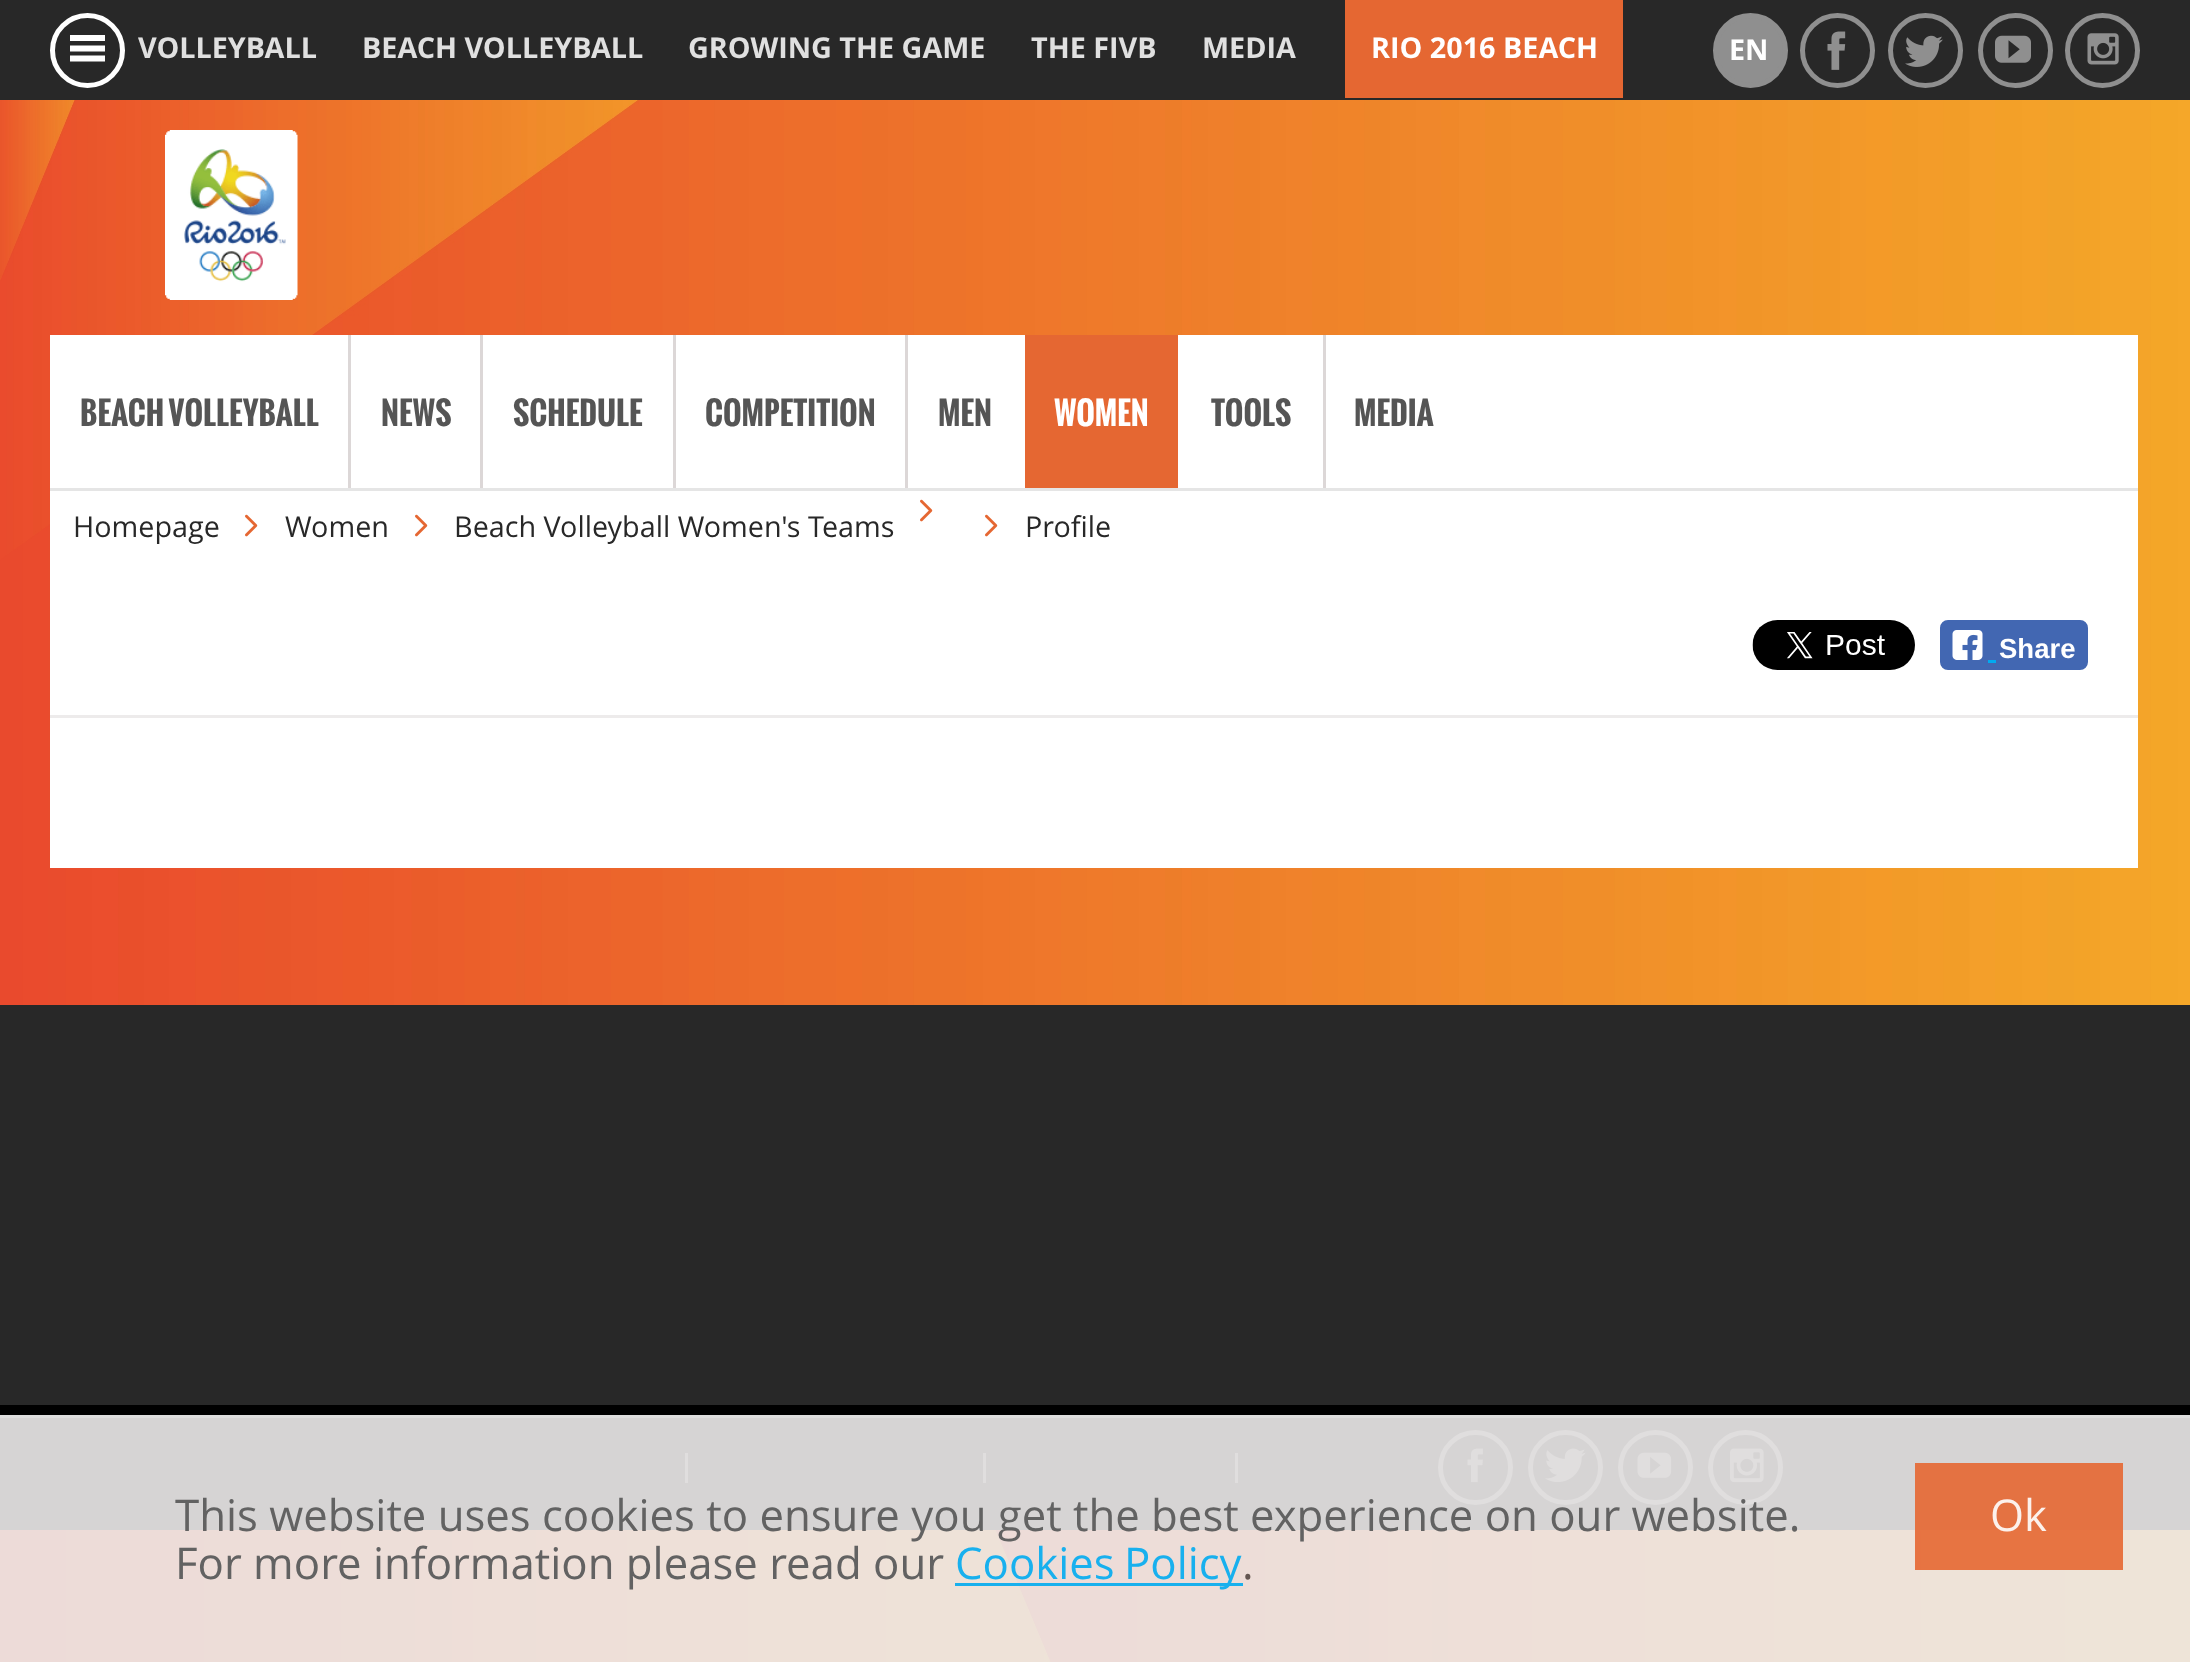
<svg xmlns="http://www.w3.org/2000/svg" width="2190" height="1662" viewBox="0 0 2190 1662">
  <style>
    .t1 { font: bold 28.75px Open Sans; fill: #e0e0e0; }
    .t2 { font: bold 28.75px Open Sans; fill: #fff; }
    .t3 { font: bold 31.25px Oswald; fill: #555; }
    .t4 { font: bold 31.25px Oswald; fill: #fff; }
    .t5 { font: 28.75px Open Sans; fill: #282828; }
    .t6 { font: bold 27.5px Liberation Sans; fill: #fff; }
    .t7 { font: 43.7px Open Sans; fill: #626262; }
    .t8 { font: 43.7px Open Sans; fill: #18b0ee; }
    .t9 { font: 43.7px Open Sans; fill: #645651; }
    .t10 { font: 43.7px Open Sans; fill: #fcf1ec; }
  </style>
  <rect width="100%" height="100%" fill="#fff"/>
  <image x="0" y="100" width="2190" height="1562" href="images/1.png"/>
  <rect x="0" y="0" width="2190" height="100" fill="#282828"/>
  <circle cx="87.5" cy="50.5" r="35" fill="none" stroke="#fff" stroke-width="5"/>
  <path d="M70 35V41H105V35ZM70 51.5H105V45.5H70ZM70 61.5H105V55.5H70Z" fill="#fff"/>
  <text x="138" y="58" class="t1">VOLLEYBALL</text>
  <text x="362" y="58" class="t1">BEACH VOLLEYBALL</text>
  <text x="688" y="58" class="t1">GROWING THE GAME</text>
  <text x="1031" y="58" class="t1">THE FIVB</text>
  <text x="1202" y="58" class="t1">MEDIA</text>
  <rect x="1345" y="0" width="278" height="98" fill="#e56732"/>
  <text x="1371" y="58" class="t2">RIO 2016 BEACH</text>
  <circle cx="1750.5" cy="50.5" r="35" fill="#8f8f8f" stroke="#8f8f8f" stroke-width="5"/>
  <text x="1729" y="60" class="t2">EN</text>
  <circle cx="1837.5" cy="50.5" r="35" fill="none" stroke="#8f8f8f" stroke-width="5"/>
  <image x="1827" y="31" width="19" height="39" href="images/2.png"/>
  <circle cx="1925.5" cy="50.5" r="35" fill="none" stroke="#8f8f8f" stroke-width="5"/>
  <image x="1905" y="35" width="38" height="32" href="images/3.png"/>
  <circle cx="2015.5" cy="50.5" r="35" fill="none" stroke="#8f8f8f" stroke-width="5"/>
  <image x="1995" y="35" width="36" height="28" href="images/4.png"/>
  <circle cx="2102.5" cy="50.5" r="35" fill="none" stroke="#8f8f8f" stroke-width="5"/>
  <image x="2087" y="33" width="32" height="32" href="images/5.png"/>
  <image x="165" y="130" width="133" height="170" href="images/6.png"/>
  <rect x="50" y="335" width="2088" height="153" fill="#fff"/>
  <text x="80" y="426" class="t3">BEACH VOLLEYBALL</text>
  <rect x="348" y="335" width="3" height="153" fill="#dcd7d7"/>
  <text x="381" y="426" class="t3">NEWS</text>
  <rect x="480" y="335" width="3" height="153" fill="#dcd7d7"/>
  <text x="513" y="426" class="t3">SCHEDULE</text>
  <rect x="673" y="335" width="3" height="153" fill="#dcd7d7"/>
  <text x="705" y="426" class="t3">COMPETITION</text>
  <rect x="905" y="335" width="3" height="153" fill="#dcd7d7"/>
  <text x="938" y="426" class="t3">MEN</text>
  <rect x="1025" y="335" width="153" height="153" fill="#e56732"/>
  <text x="1054" y="426" class="t4">WOMEN</text>
  <text x="1211" y="426" class="t3">TOOLS</text>
  <rect x="1323" y="335" width="3" height="153" fill="#dcd7d7"/>
  <text x="1354" y="426" class="t3">MEDIA</text>
  <rect x="50" y="488" width="2088" height="3" fill="#e5e5e5"/>
  <rect x="50" y="491" width="2088" height="224" fill="#fff"/>
  <image x="920" y="499" width="13" height="23" href="images/7.png"/>
  <text x="73" y="537" class="t5">Homepage</text>
  <image x="245" y="514" width="13" height="23" href="images/7.png"/>
  <text x="285" y="537" class="t5">Women</text>
  <image x="415" y="514" width="13" height="23" href="images/7.png"/>
  <text x="454" y="537" class="t5">Beach Volleyball Women's Teams</text>
  <image x="985" y="514" width="13" height="23" href="images/7.png"/>
  <text x="1025" y="537" class="t5">Profile</text>
  <rect x="50" y="715" width="2088" height="3" fill="#edebeb"/>
  <image x="1752" y="620" width="163" height="50" href="images/8.png"/>
  <rect x="1941.5" y="621.5" width="145" height="47" rx="6.5" fill="#4267b2" stroke="#4267b2" stroke-width="3"/>
  <image x="1952" y="630" width="31" height="30" href="images/9.png"/>
  <text x="1999" y="658" class="t6">Share</text>
  <rect x="1988" y="660" width="8" height="3" fill="#00abf0"/>
  <rect x="50" y="718" width="2088" height="150" fill="#fff"/>
  <rect x="0" y="1005" width="2190" height="400" fill="#282828"/>
  <rect x="0" y="1405" width="2190" height="125" fill="#000"/>
  <rect x="685" y="1453" width="3" height="30" fill="#656565"/>
  <rect x="983" y="1453" width="3" height="30" fill="#656565"/>
  <rect x="1235" y="1453" width="3" height="30" fill="#656565"/>
  <circle cx="1475.5" cy="1467.5" r="35" fill="none" stroke="#656565" stroke-width="5"/>
  <image x="1467" y="1448" width="16" height="35" href="images/10.png"/>
  <circle cx="1565.5" cy="1467.5" r="35" fill="none" stroke="#656565" stroke-width="5"/>
  <image x="1545" y="1448" width="41" height="35" href="images/11.png"/>
  <circle cx="1655.5" cy="1467.5" r="35" fill="none" stroke="#656565" stroke-width="5"/>
  <image x="1637" y="1452" width="35" height="26" href="images/12.png"/>
  <circle cx="1745.5" cy="1467.5" r="35" fill="none" stroke="#656565" stroke-width="5"/>
  <image x="1730" y="1448" width="34" height="35" href="images/13.png"/>
  <rect x="0" y="1418" width="2190" height="244" fill="#edebebe6"/>
  <rect x="0" y="1415" width="2190" height="3" fill="#ddd"/>
  <text x="175" y="1531" class="t7">This website uses cookies to ensure you get the best experience on our website.</text>
  <text x="175" y="1579" class="t7">For more information please read our</text>
  <rect x="955" y="1583" width="288" height="3" fill="#00abf0e6"/>
  <text x="955" y="1579" word-spacing="-2" class="t8">Cookies Policy</text>
  <text x="1242" y="1579" class="t9">.</text>
  <rect x="1915" y="1463" width="208" height="107" fill="#e56732e6"/>
  <text x="1990" y="1531" class="t10">Ok</text>
</svg>
